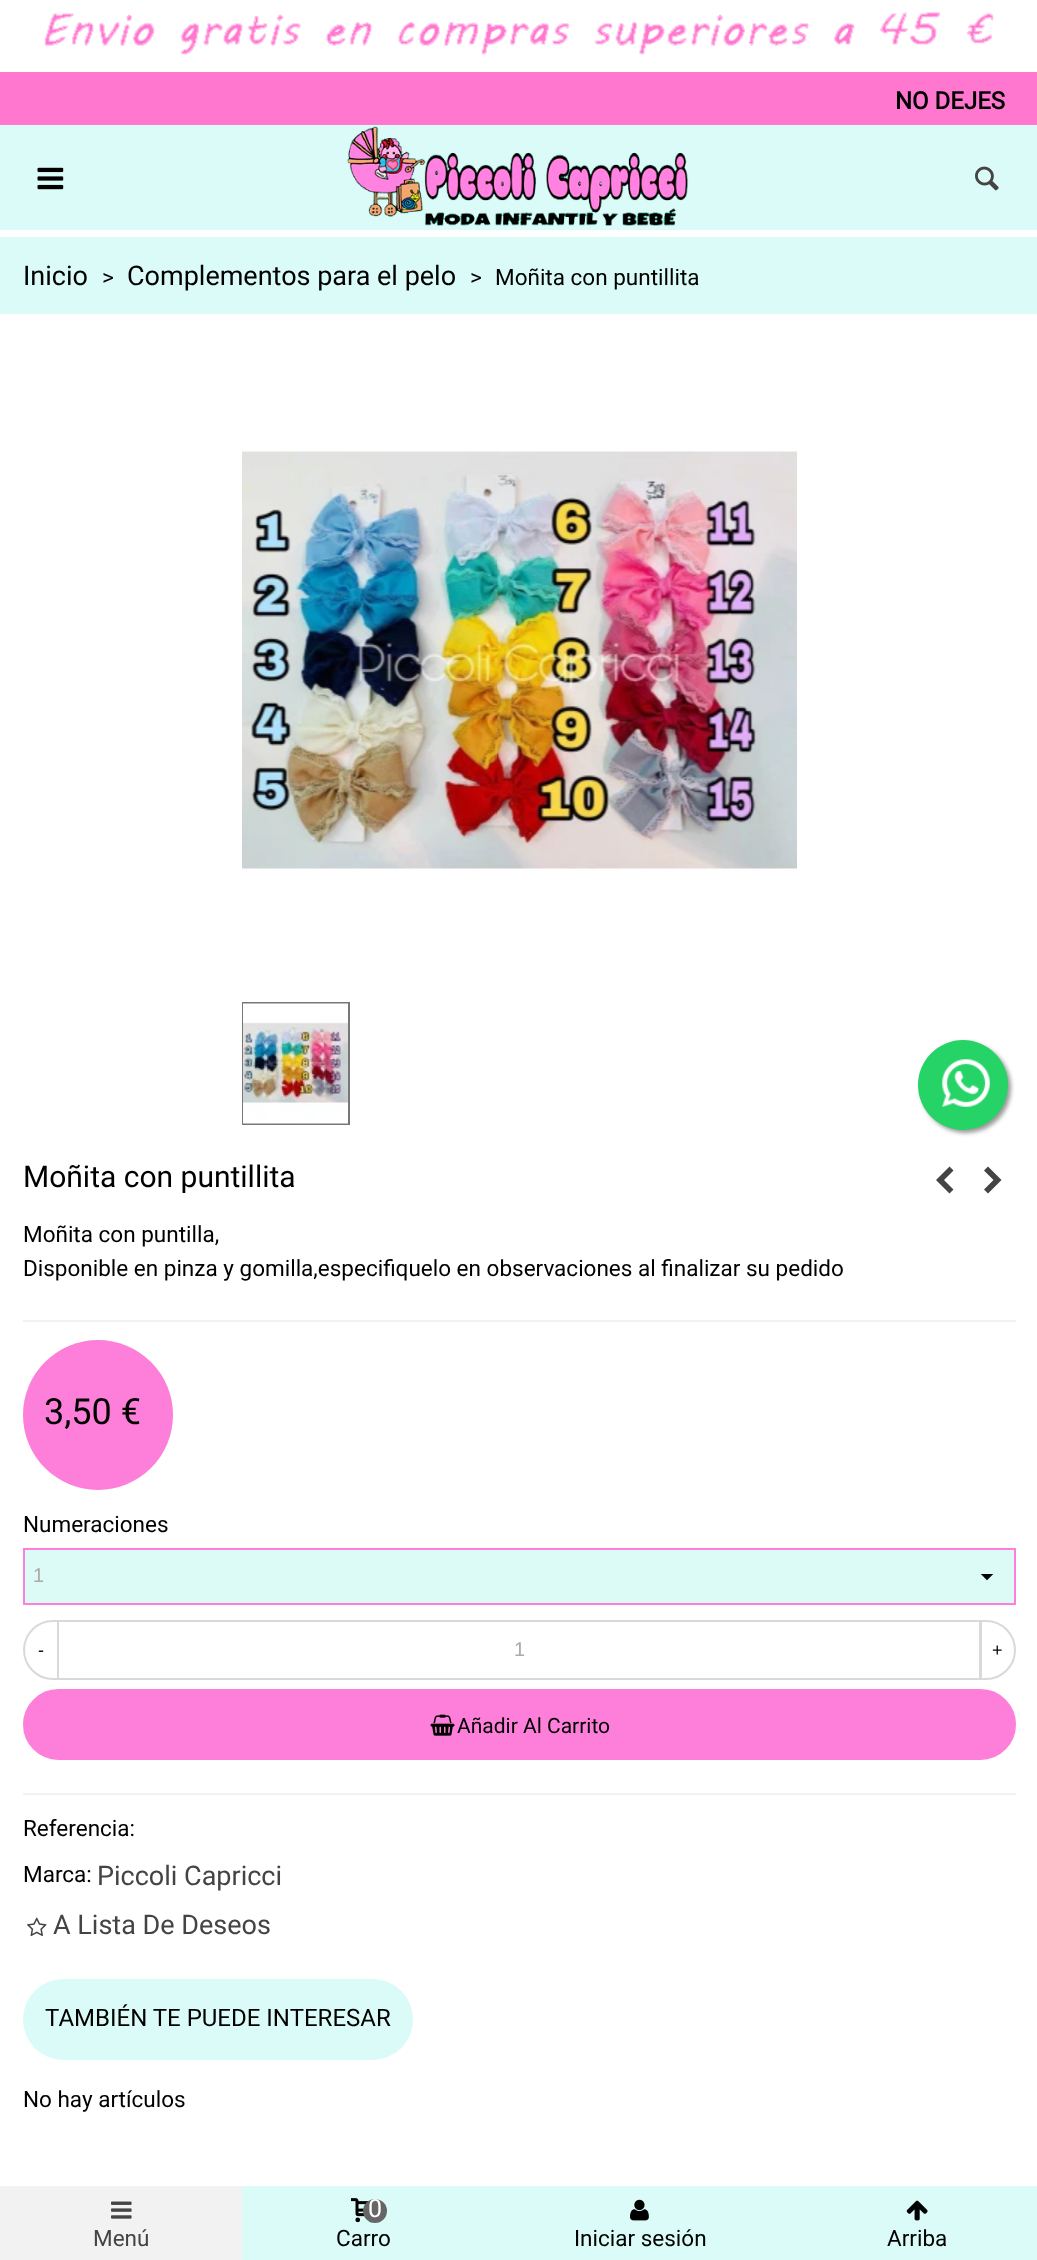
<svg xmlns="http://www.w3.org/2000/svg" width="1037" height="2260" viewBox="0 0 1037 2260">
  <style>
    .t1 { font: bold 24px Roboto; fill: #000; }
    .t2 { font: 27px Roboto; fill: #000; }
    .t3 { font: 22.5px Roboto; fill: #000; }
    .t4 { font: 30px Roboto; fill: #000; }
    .t5 { font: 36px Roboto; fill: #000; }
    .t6 { font: 20px Liberation Sans; fill: #acaaa6; }
    .t7 { font: 18px Liberation Sans; fill: #000; }
    .t8 { font: 21px Roboto; fill: #000; }
    .t9 { font: 27px Roboto; fill: #444; }
    .t10 { font: 24px Roboto; fill: #000; }
    .t11 { font: 22.5px Roboto; fill: #444; }
    .t12 { font: 25px Roboto; fill: #fff; }
  </style>
  <rect width="100%" height="100%" fill="#fff"/>
  <image x="44" y="12" width="950" height="43" href="images/1.png"/>
  <rect x="0" y="72" width="1037" height="53" fill="#ff77ce"/>
  <text x="895" y="109" class="t1">NO DEJES</text>
  <rect x="0" y="125" width="1037" height="105" fill="#dafbf7"/>
  <image x="37" y="167" width="27" height="23" href="images/2.png"/>
  <image x="346" y="126" width="343" height="100" href="images/3.png"/>
  <image x="975" y="166" width="24" height="25" href="images/4.png"/>
  <rect x="0" y="237" width="1037" height="77" fill="#dafbf7"/>
  <text x="23" y="285" class="t2">Inicio</text>
  <text x="102" y="285" class="t3">&gt;</text>
  <text x="127" y="285" class="t2">Complementos para el pelo</text>
  <text x="470" y="285" class="t3">&gt;</text>
  <text x="495" y="285" class="t3">Moñita con puntillita</text>
  <image x="242" y="451" width="555" height="420" href="images/5.png"/>
  <rect x="243" y="1003" width="106" height="121" fill="none" stroke="#777" stroke-width="2"/>
  <image x="243" y="1003" width="105" height="121" href="images/6.png"/>
  <text x="23" y="1187" class="t4">Moñita con puntillita</text>
  <path d="M936 1180L949.5 1166.5L953.5 1170.5L944 1180L953.5 1189.5L949.5 1193.5Z" fill="#444"/>
  <path d="M984 1189.5L993.5 1180L984 1170.5L988 1166.5L1001.5 1180L988 1193.5Z" fill="#444"/>
  <text x="23" y="1242" class="t3">Moñita con puntilla,</text>
  <text x="23" y="1276" class="t3">Disponible en pinza y gomilla,especifiquelo en observaciones al finalizar su pedido</text>
  <rect x="23" y="1320" width="993" height="2" fill="#f2f2f2"/>
  <circle cx="98" cy="1415" r="75" fill="#fe7fd9"/>
  <text x="44" y="1424" class="t5">3,50 €</text>
  <text x="23" y="1532" class="t3">Numeraciones</text>
  <rect x="25" y="1550" width="989" height="53" fill="#dcfbf7"/>
  <image x="980" y="1574" width="14" height="7" href="images/7.png"/>
  <rect x="24" y="1549" width="991" height="55" fill="none" stroke="#fe7fd9" stroke-width="2"/>
  <text x="33" y="1582" class="t6">1</text>
  <path d="M53 1621H58V1679H53C37 1679 24 1666 24 1650C24 1634 37 1621 53 1621Z" fill="none" stroke="#d9d9d9" stroke-width="2"/>
  <text x="38" y="1656" class="t7">-</text>
  <rect x="58" y="1621" width="922" height="58" fill="none" stroke="#d9d9d9" stroke-width="2"/>
  <text x="514" y="1656" class="t6">1</text>
  <path d="M981 1621H986C1002 1621 1015 1634 1015 1650C1015 1666 1002 1679 986 1679H981Z" fill="#fff" stroke="#d9d9d9" stroke-width="2"/>
  <text x="992" y="1656" class="t7">+</text>
  <rect x="24.5" y="1690.5" width="990" height="68" rx="34" fill="#fe7fd9" stroke="#fe7fd9" stroke-width="3"/>
  <image x="430" y="1714" width="25" height="22" href="images/8.png"/>
  <text x="457" y="1733" class="t8">Añadir Al Carrito</text>
  <rect x="23" y="1793" width="993" height="2" fill="#f2f2f2"/>
  <text x="23" y="1836" class="t3">Referencia:</text>
  <text x="23" y="1882" class="t3">Marca:</text>
  <text x="97" y="1885" class="t9">Piccoli Capricci</text>
  <image x="27" y="1917" width="20" height="20" href="images/9.png"/>
  <text x="53" y="1934" class="t9">A Lista De Deseos</text>
  <rect x="23" y="1979" width="390" height="81" rx="40.5" fill="#dafbf7"/>
  <text x="45" y="2026" class="t10">TAMBIÉN TE PUEDE INTERESAR</text>
  <text x="23" y="2107" class="t3">No hay artículos</text>
  <rect x="0" y="2186" width="242" height="74" fill="#f2f2f2"/>
  <image x="111" y="2201" width="21" height="18" href="images/10.png"/>
  <text x="93" y="2246" class="t11">Menú</text>
  <rect x="242" y="2186" width="795" height="74" fill="#dafbf7"/>
  <image x="351" y="2198" width="21" height="25" href="images/11.png"/>
  <circle cx="375" cy="2211" r="12" fill="#666"/>
  <text x="368" y="2217" class="t12">0</text>
  <text x="336" y="2246" class="t3">Carro</text>
  <image x="630" y="2199" width="19" height="22" href="images/12.png"/>
  <text x="574" y="2246" class="t3">Iniciar sesión</text>
  <image x="906" y="2200" width="22" height="21" href="images/13.png"/>
  <text x="887" y="2246" class="t3">Arriba</text>
  <rect x="921" y="1043" width="90" height="90" rx="45" fill="#999" filter="blur(2px)"/>
  <circle cx="963" cy="1085" r="45" fill="#25d366"/>
  <image x="942" y="1059" width="48" height="48" href="images/14.png"/>
</svg>
